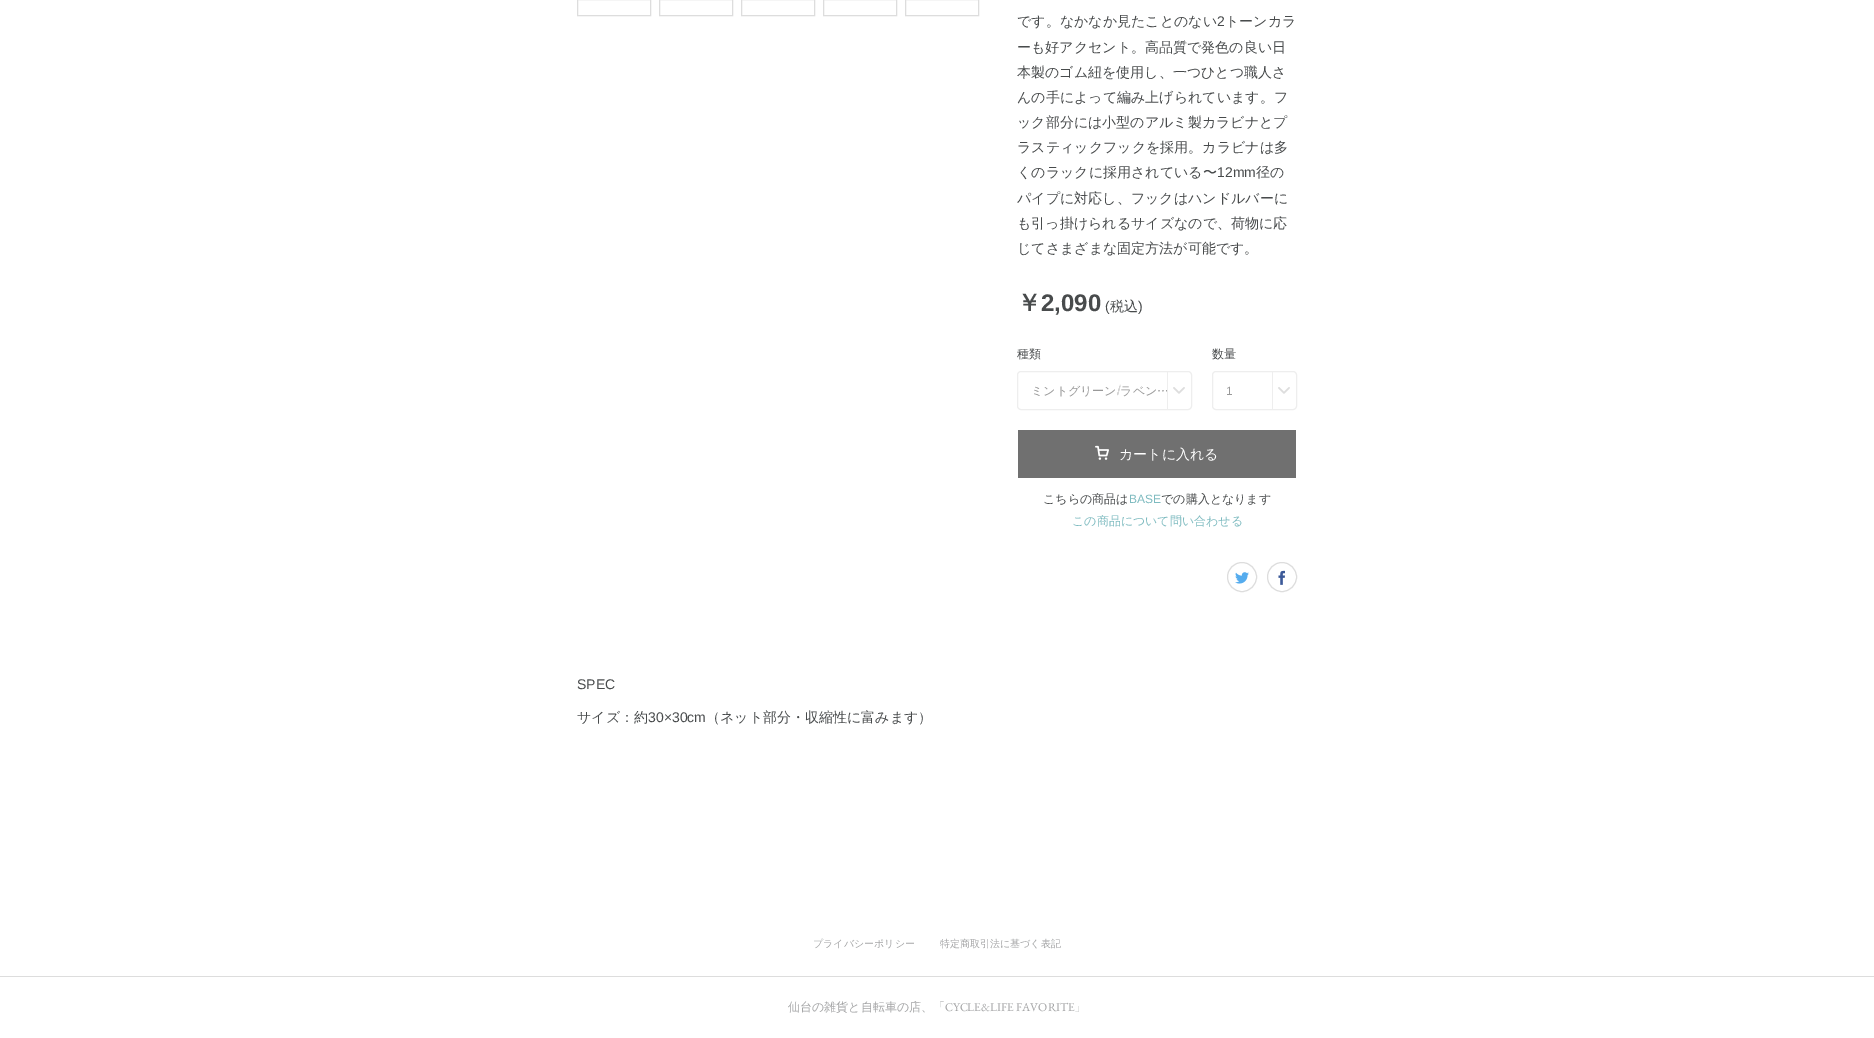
%!PS
<< /PageSize [1874 1038] >> setpagedevice
/s/stroke load def
/C { dup -16 bitshift 255 div exch dup -8 bitshift 255 and 255 div exch 255 and 255 div setrgbcolor } def
/F { [ exch dup neg 0 0 3 -1 roll 0 0 ] selectfont } def
/T { moveto show } def
/R { rectfill } def
/O { newpath 0 360 arc closepath } def
/Q { 5 dict begin { /r /h /w /y /x } { exch def } forall
  x r add y moveto x w add y 2 copy h add r arct x w add y h add x 1 index r arct
  x y h add x y r arct x y 2 copy exch w add exch r arct closepath end } def
/I { 5 dict begin { /h /w /y /x /name } { exch def } forall
  gsave x y translate w h scale
  w h 8 [w 0 0 h 0 0] name (r) file false 3 colorimage grestore end } def
0 1038 translate 1 -1 scale
4 setmiterlimit
16#FFFFFF C
0 0 1874 1038 R
16#DDDDDD C
577.5 -.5 73 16 rectstroke
659.5 -.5 73 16 rectstroke
741.5 -.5 73 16 rectstroke
823.5 -.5 73 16 rectstroke
905.5 -.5 73 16 rectstroke
/WenQuanYiZenHei-Medium 14 F
16#484B4C C
(です。なかなか見たことのない) 1017 26 T
/LiberationSans-Regular 14 F
(2) 1217 26 T
/WenQuanYiZenHei-Medium 14 F
(トーンカラ) 1225 26 T
(ーも好アクセント。高品質で発色の良い日) 1017 52 T
(本製のゴム紐を使用し、一つひとつ職人さ) 1017 77 T
(んの手によって編み上げられています。フ) 1017 102 T
(ック部分には小型のアルミ製カラビナとプ) 1017 127 T
(ラスティックフックを採用。カラビナは多) 1017 152 T
(くのラックに採用されている〜) 1017 177 T
/LiberationSans-Regular 14 F
(12mm) 1217 177 T
/WenQuanYiZenHei-Medium 14 F
(径の) 1256 177 T
(パイプに対応し、フックはハンドルバーに) 1017 203 T
(も引っ掛けられるサイズなので、荷物に応) 1017 228 T
(じてさまざまな固定方法が可能です。) 1017 253 T
/WenQuanYiZenHei-Bold 24 F
(￥) 1017 311 T
/LiberationSans-Bold 24 F
(2,090) 1041 311 T
/LiberationSans-Regular 14 F
(\() 1105 311 T
/WenQuanYiZenHei-Medium 14 F
(税込) 1110 311 T
/LiberationSans-Regular 14 F
(\)) 1138 311 T
/WenQuanYiZenHei-Medium 12 F
(種類) 1017 358 T
16#EEEEEE C
1017.5 371.5 174 38 3.5 Q s
16#999999 C
(ミントグリーン ラベン…) 1031 395 T
/LiberationSans-Regular 12 F
(/) 1117 395 T
/LiberationSans-Regular 14 F
16#DEDEDE C
(/) 1117 395 T
16#EEEEEE C
1167 372 1 37 R
(1.rgb) 1173 387 12 7 I
/WenQuanYiZenHei-Medium 12 F
16#484B4C C
(数量) 1212 358 T
16#EEEEEE C
1212.5 371.5 84 38 3.5 Q s
/LiberationSans-Regular 12 F
16#999999 C
(1) 1226 395 T
16#EEEEEE C
1272 372 1 37 R
(1.rgb) 1278 387 12 7 I
16#707070 C
1018 430 278 48 R
(2.rgb) 1095 445 14 15 I
/WenQuanYiZenHei-Medium 14 F
16#FFFFFF C
(カートに入れる) 1119 459 T
/WenQuanYiZenHei-Medium 12 F
16#484B4C C
(こちらの商品は) 1043 503 T
/LiberationSans-Regular 12 F
16#7EBBC0 C
(BASE) 1129 503 T
/WenQuanYiZenHei-Medium 12 F
16#484B4C C
(での購入となります) 1161 503 T
16#7EBBC0 C
(この商品について問い合わせる) 1072 525 T
16#DDDDDD C
1242 577 14.5 O s
(3.rgb) 1235 572 14 12 I
1282 577 14.5 O s
(4.rgb) 1278 570 7 15 I
/LiberationSans-Regular 14 F
16#484B4C C
(SPEC) 577 689 T
/WenQuanYiZenHei-Medium 14 F
(サイズ：約) 577 722 T
/LiberationSans-Regular 14 F
(30×30cm) 648 722 T
/WenQuanYiZenHei-Medium 14 F
(（ネット部分・収縮性に富みます）) 706 722 T
/WenQuanYiZenHei-Medium 10 F
16#A4A5A6 C
(プライバシーポリシー) 813 947 T
(特定商取引法に基づく表記) 940 947 T
16#DDDDDD C
0 976 1874 1 R
/WenQuanYiZenHei-Medium 12 F
16#A4A5A6 C
(仙台の雑貨と自転車の店、「) 788 1011 T
/EBGaramond-Regular 12 F
(CYCLE&LIFE FAVORITE) 945 1011 T
/WenQuanYiZenHei-Medium 12 F
(」) 1074 1011 T
showpage
